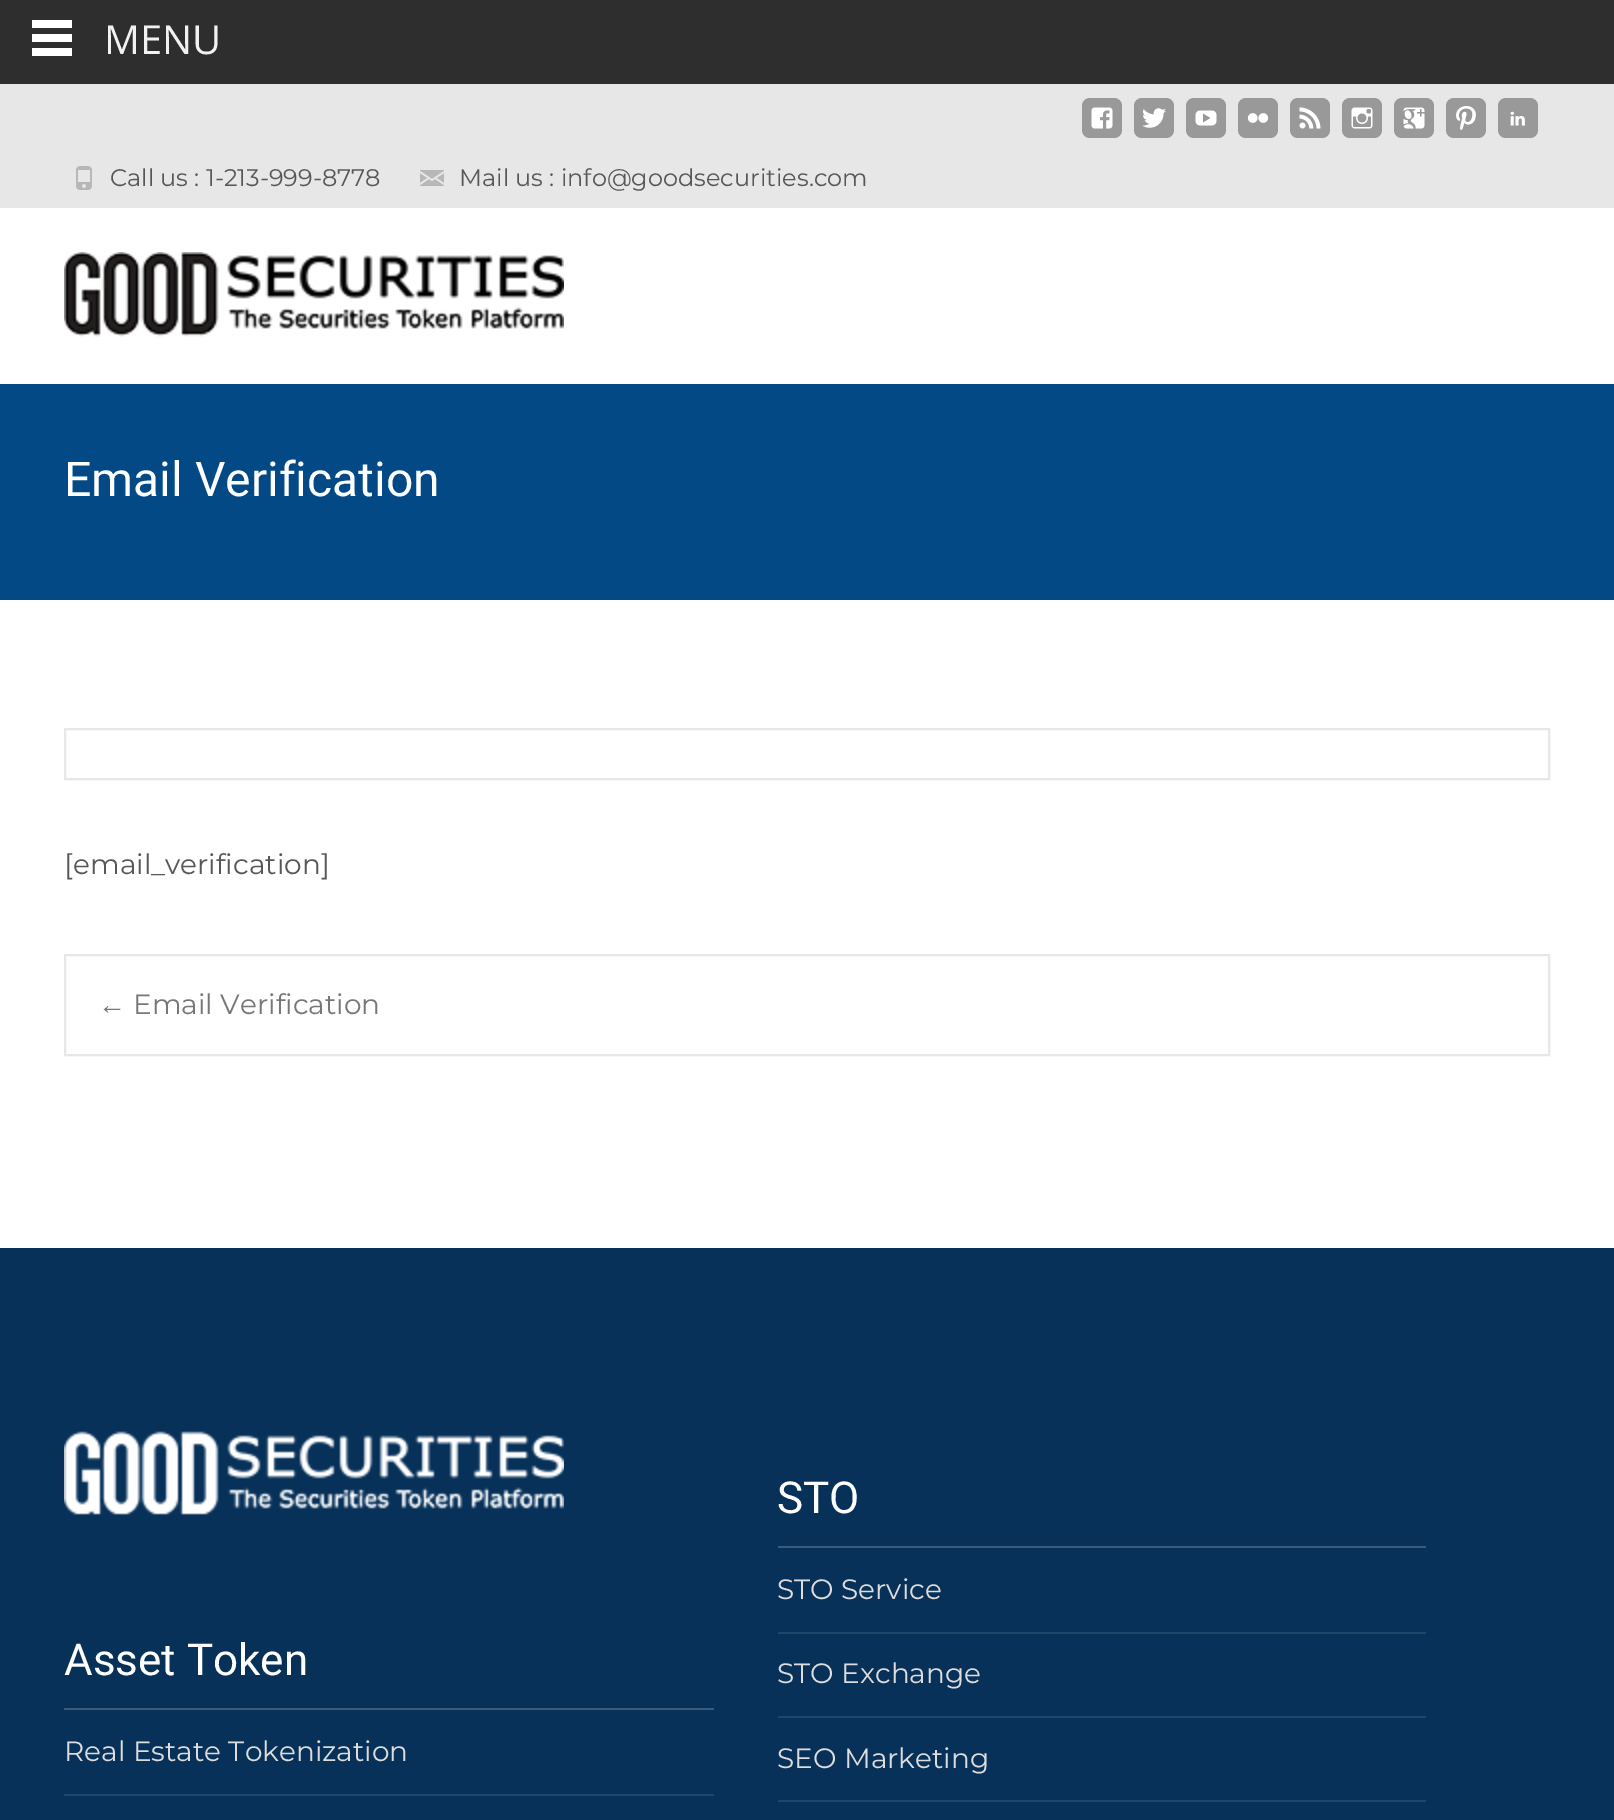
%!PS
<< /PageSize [1614 1820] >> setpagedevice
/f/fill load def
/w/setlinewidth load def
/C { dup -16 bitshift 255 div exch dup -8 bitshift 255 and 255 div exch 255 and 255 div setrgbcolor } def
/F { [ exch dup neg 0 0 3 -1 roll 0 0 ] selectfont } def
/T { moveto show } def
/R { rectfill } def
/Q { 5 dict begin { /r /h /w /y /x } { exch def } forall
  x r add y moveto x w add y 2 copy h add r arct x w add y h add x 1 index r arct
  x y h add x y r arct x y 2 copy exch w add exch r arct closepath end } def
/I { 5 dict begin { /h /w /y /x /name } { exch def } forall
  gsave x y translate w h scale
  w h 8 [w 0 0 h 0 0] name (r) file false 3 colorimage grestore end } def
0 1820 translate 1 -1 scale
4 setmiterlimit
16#FFFFFF C
0 0 1614 1820 R
16#2E2E2E C
0 0 1614 84 R
16#FFFFFF C
32 20 40 8 R
32 34 40 8 R
32 48 40 8 R
/OpenSans-Regular 40 F
16#F2F2F2 C
(MENU) 104 54 T
16#E7E7E7 C
0 84 1614 124 R
16#999999 C
1082 98 40 40 8 Q f
(1.rgb) 1091 107 22 22 I
1134 98 40 40 8 Q f
(2.rgb) 1142 108 24 20 I
1186 98 40 40 8 Q f
(3.rgb) 1195 110 22 16 I
1238 98 40 40 8 Q f
(4.rgb) 1247 113 22 10 I
1290 98 40 40 8 Q f
(5.rgb) 1299 107 22 22 I
1342 98 40 40 8 Q f
(6.rgb) 1351 107 22 22 I
1394 98 40 40 8 Q f
(7.rgb) 1403 107 22 22 I
1446 98 40 40 8 Q f
(8.rgb) 1456 106 20 24 I
1498 98 40 40 8 Q f
(9.rgb) 1510 111 15 15 I
(10.rgb) 76 166 16 24 I
/Montserrat-Regular 24 F
16#575757 C
(Call us : 1-213-999-8778) 110 186 T
(11.rgb) 420 170 24 16 I
(Mail us : info@goodsecurities.com) 459 186 T
(12.rgb) 64 252 500 85 I
16#024986 C
0 384 1614 216 R
/Roboto-Regular 48 F
16#FFFFFF C
(Email Verification) 64 496 T
16#E7E7E7 C
2 w
65 729 1484 50 rectstroke
/Montserrat-Regular 28 F
16#575757 C
([email_verification]) 64 874 T
16#E7E7E7 C
65 955 1484 100 rectstroke
/LiberationSerif-Regular 28 F
16#777777 C
(←) 98 1014 T
/Montserrat-Regular 28 F
(Email Verification) 133 1014 T
16#073159 C
0 1248 1614 572 R
(13.rgb) 64 1431 500 84 I
16#395A7A C
778 1546 648 2 R
/Roboto-Regular 44 F
16#FFFFFF C
(STO) 777 1513 T
16#20466A C
778 1632 648 2 R
/Montserrat-Regular 28 F
16#DDDDDD C
(STO Service) 777 1599 T
16#20466A C
778 1716 648 2 R
16#DDDDDD C
(STO Exchange) 777 1683 T
16#20466A C
778 1800 648 2 R
16#DDDDDD C
(SEO Marketing) 777 1768 T
16#395A7A C
64 1708 650 2 R
/Roboto-Regular 44 F
16#FFFFFF C
(Asset Token) 64 1675 T
16#20466A C
64 1794 650 2 R
/Montserrat-Regular 28 F
16#DDDDDD C
(Real Estate Tokenization) 64 1761 T
showpage
